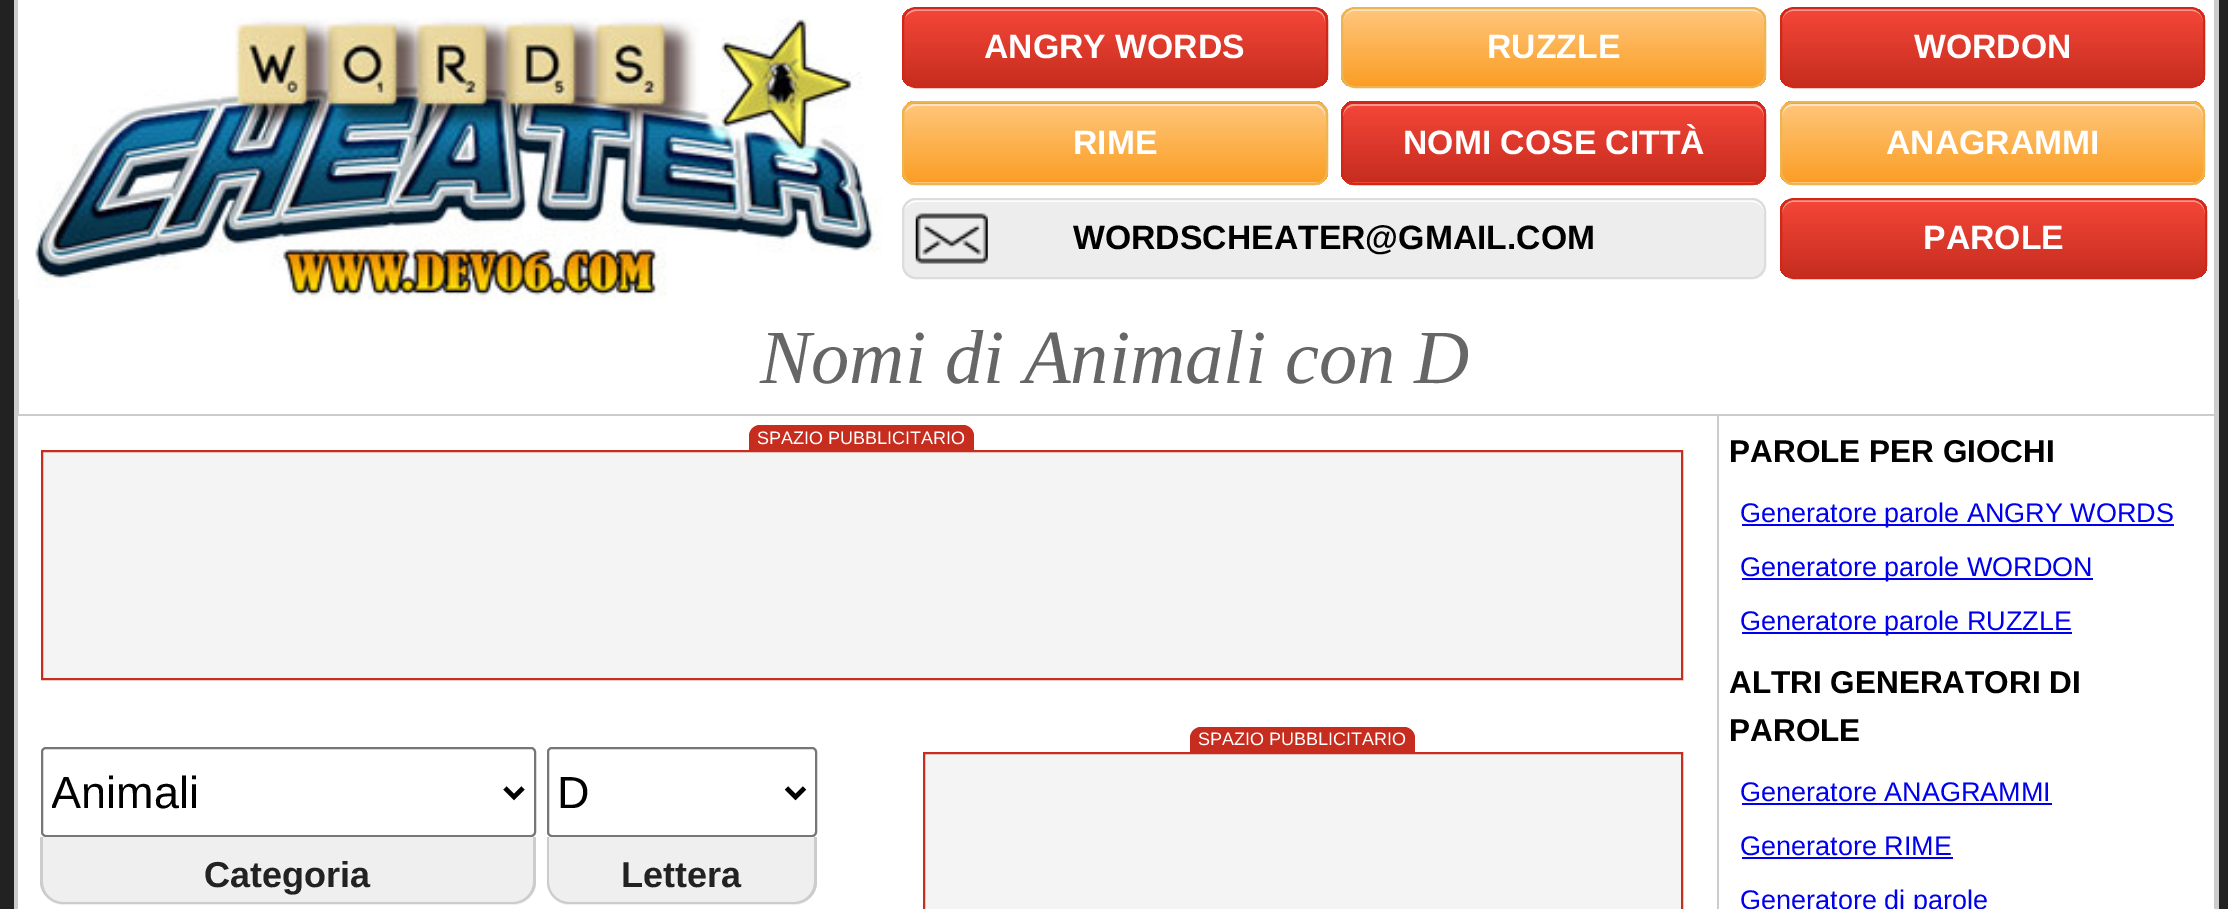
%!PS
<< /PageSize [2228 909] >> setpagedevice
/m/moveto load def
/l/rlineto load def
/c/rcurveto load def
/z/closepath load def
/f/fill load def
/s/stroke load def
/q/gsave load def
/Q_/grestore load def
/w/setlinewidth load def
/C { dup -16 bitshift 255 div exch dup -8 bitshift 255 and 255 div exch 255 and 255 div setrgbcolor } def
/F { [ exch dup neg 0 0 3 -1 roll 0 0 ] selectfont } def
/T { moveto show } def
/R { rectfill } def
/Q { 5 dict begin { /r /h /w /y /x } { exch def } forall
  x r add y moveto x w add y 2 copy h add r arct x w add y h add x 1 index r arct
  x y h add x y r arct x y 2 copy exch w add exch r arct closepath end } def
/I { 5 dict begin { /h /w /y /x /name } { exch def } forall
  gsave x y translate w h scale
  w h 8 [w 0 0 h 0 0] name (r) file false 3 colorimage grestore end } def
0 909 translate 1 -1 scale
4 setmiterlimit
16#222222 C
0 0 2228 909 R
16#FFFFFF C
19 0 2195 909 R
16#CCCCCC C
2214 0 5 909 R
14 0 5 909 R
18 414 2196 2 R
(1.rgb) 18 0 864 300 I
q
902 7 426 81 14 Q clip newpath
q 902 9 m 426 0 l 0 77 l -426 0 l z clip newpath
<< /ShadingType 2 /ColorSpace /DeviceRGB /Coords [1115 9 1115 86] /Extend [true true] /Function << /FunctionType 3 /Domain [0 1] /Functions [<< /FunctionType 2 /Domain [0 1] /C0 [.949 .271 .216] /C1 [.949 .271 .216] /N 1 >> << /FunctionType 2 /Domain [0 1] /C0 [.949 .271 .216] /C1 [.776 .176 .122] /N 1 >>] /Bounds [.05] /Encode [0 1 0 1] >> >> shfill Q_
Q_
16#F5978E C
916 11 m 398 0 l 6 0 11 5 11 11 c 0 -2 l 0 -6 -5 -11 -11 -11 c -398 0 l -5 0 -9 3 -11 8 c 3 -3 7 -6 11 -6 c z f
16#D02718 C
2 w
903 8 424 79 13 Q s
/LiberationSans-Bold 33.75 F
16#FFFFFF C
(ANGRY WORDS) 984 58 T
q
1341 7 425 81 14 Q clip newpath
q 1341 9 m 425 0 l 0 77 l -425 0 l z clip newpath
<< /ShadingType 2 /ColorSpace /DeviceRGB /Coords [1554 9 1554 86] /Extend [true true] /Function << /FunctionType 3 /Domain [0 1] /Functions [<< /FunctionType 2 /Domain [0 1] /C0 [1 .769 .467] /C1 [1 .769 .467] /N 1 >> << /FunctionType 2 /Domain [0 1] /C0 [1 .769 .467] /C1 [.984 .62 .145] /N 1 >>] /Bounds [.05] /Encode [0 1 0 1] >> >> shfill Q_
Q_
16#FCE2C1 C
1354 11 m 399 0 l 6 0 11 5 11 11 c 0 -2 l 0 -6 -5 -11 -11 -11 c -399 0 l -6 0 -11 5 -11 11 c 0 2 l 0 -6 5 -11 11 -11 c z f
16#EEB44F C
1342 8 423 79 13 Q s
16#FFFFFF C
(RUZZLE) 1487 58 T
q
1780 7 425 81 14 Q clip newpath
q 1780 9 m 425 0 l 0 77 l -425 0 l z clip newpath
<< /ShadingType 2 /ColorSpace /DeviceRGB /Coords [1992 9 1992 86] /Extend [true true] /Function << /FunctionType 3 /Domain [0 1] /Functions [<< /FunctionType 2 /Domain [0 1] /C0 [.949 .271 .216] /C1 [.949 .271 .216] /N 1 >> << /FunctionType 2 /Domain [0 1] /C0 [.949 .271 .216] /C1 [.776 .176 .122] /N 1 >>] /Bounds [.05] /Encode [0 1 0 1] >> >> shfill Q_
Q_
16#F5978E C
1793 11 m 399 0 l 6 0 11 5 11 11 c 0 -2 l 0 -6 -5 -11 -11 -11 c -399 0 l -6 0 -11 5 -11 11 c 0 2 l 0 -6 5 -11 11 -11 c z f
16#D02718 C
1781 8 423 79 13 Q s
16#FFFFFF C
(WORDON) 1914 58 T
q
902 101 426 84 14 Q clip newpath
q 902 101 m 426 0 l 0 3 l -426 0 l z clip newpath
<< /ShadingType 2 /ColorSpace /DeviceRGB /Coords [1115 25 1115 104] /Extend [true true] /Function << /FunctionType 3 /Domain [0 1] /Functions [<< /FunctionType 2 /Domain [0 1] /C0 [1 .769 .467] /C1 [1 .769 .467] /N 1 >> << /FunctionType 2 /Domain [0 1] /C0 [1 .769 .467] /C1 [.984 .62 .145] /N 1 >>] /Bounds [.05] /Encode [0 1 0 1] >> >> shfill Q_
q 902 104 m 426 0 l 0 78 l -426 0 l z clip newpath
<< /ShadingType 2 /ColorSpace /DeviceRGB /Coords [1115 103 1115 182] /Extend [true true] /Function << /FunctionType 3 /Domain [0 1] /Functions [<< /FunctionType 2 /Domain [0 1] /C0 [1 .769 .467] /C1 [1 .769 .467] /N 1 >> << /FunctionType 2 /Domain [0 1] /C0 [1 .769 .467] /C1 [.984 .62 .145] /N 1 >>] /Bounds [.05] /Encode [0 1 0 1] >> >> shfill Q_
q 902 182 m 426 0 l 0 3 l -426 0 l z clip newpath
<< /ShadingType 2 /ColorSpace /DeviceRGB /Coords [1115 182 1115 261] /Extend [true true] /Function << /FunctionType 3 /Domain [0 1] /Functions [<< /FunctionType 2 /Domain [0 1] /C0 [1 .769 .467] /C1 [1 .769 .467] /N 1 >> << /FunctionType 2 /Domain [0 1] /C0 [1 .769 .467] /C1 [.984 .62 .145] /N 1 >>] /Bounds [.05] /Encode [0 1 0 1] >> >> shfill Q_
Q_
16#FCE2C1 C
916 106 m 398 0 l 6 0 11 5 11 11 c 0 -2 l 0 -6 -5 -11 -11 -11 c -398 0 l -5 0 -9 3 -11 8 c 3 -3 7 -6 11 -6 c z f
16#EEB44F C
903 102 424 82 13 Q s
16#FFFFFF C
(RIME) 1073 154 T
q
1341 101 425 84 14 Q clip newpath
q 1341 101 m 425 0 l 0 3 l -425 0 l z clip newpath
<< /ShadingType 2 /ColorSpace /DeviceRGB /Coords [1554 25 1554 104] /Extend [true true] /Function << /FunctionType 3 /Domain [0 1] /Functions [<< /FunctionType 2 /Domain [0 1] /C0 [.949 .271 .216] /C1 [.949 .271 .216] /N 1 >> << /FunctionType 2 /Domain [0 1] /C0 [.949 .271 .216] /C1 [.776 .176 .122] /N 1 >>] /Bounds [.05] /Encode [0 1 0 1] >> >> shfill Q_
q 1341 104 m 425 0 l 0 78 l -425 0 l z clip newpath
<< /ShadingType 2 /ColorSpace /DeviceRGB /Coords [1554 103 1554 182] /Extend [true true] /Function << /FunctionType 3 /Domain [0 1] /Functions [<< /FunctionType 2 /Domain [0 1] /C0 [.949 .271 .216] /C1 [.949 .271 .216] /N 1 >> << /FunctionType 2 /Domain [0 1] /C0 [.949 .271 .216] /C1 [.776 .176 .122] /N 1 >>] /Bounds [.05] /Encode [0 1 0 1] >> >> shfill Q_
q 1341 182 m 425 0 l 0 3 l -425 0 l z clip newpath
<< /ShadingType 2 /ColorSpace /DeviceRGB /Coords [1554 182 1554 261] /Extend [true true] /Function << /FunctionType 3 /Domain [0 1] /Functions [<< /FunctionType 2 /Domain [0 1] /C0 [.949 .271 .216] /C1 [.949 .271 .216] /N 1 >> << /FunctionType 2 /Domain [0 1] /C0 [.949 .271 .216] /C1 [.776 .176 .122] /N 1 >>] /Bounds [.05] /Encode [0 1 0 1] >> >> shfill Q_
Q_
16#F5978E C
1354 106 m 399 0 l 6 0 11 5 11 11 c 0 -2 l 0 -6 -5 -11 -11 -11 c -399 0 l -6 0 -11 5 -11 11 c 0 2 l 0 -6 5 -11 11 -11 c z f
16#D02718 C
1342 102 423 82 13 Q s
16#FFFFFF C
(NOMI COSE CITTÀ) 1403 154 T
q
1780 101 425 84 14 Q clip newpath
q 1780 101 m 425 0 l 0 3 l -425 0 l z clip newpath
<< /ShadingType 2 /ColorSpace /DeviceRGB /Coords [1992 25 1992 104] /Extend [true true] /Function << /FunctionType 3 /Domain [0 1] /Functions [<< /FunctionType 2 /Domain [0 1] /C0 [1 .769 .467] /C1 [1 .769 .467] /N 1 >> << /FunctionType 2 /Domain [0 1] /C0 [1 .769 .467] /C1 [.984 .62 .145] /N 1 >>] /Bounds [.05] /Encode [0 1 0 1] >> >> shfill Q_
q 1780 104 m 425 0 l 0 78 l -425 0 l z clip newpath
<< /ShadingType 2 /ColorSpace /DeviceRGB /Coords [1992 103 1992 182] /Extend [true true] /Function << /FunctionType 3 /Domain [0 1] /Functions [<< /FunctionType 2 /Domain [0 1] /C0 [1 .769 .467] /C1 [1 .769 .467] /N 1 >> << /FunctionType 2 /Domain [0 1] /C0 [1 .769 .467] /C1 [.984 .62 .145] /N 1 >>] /Bounds [.05] /Encode [0 1 0 1] >> >> shfill Q_
q 1780 182 m 425 0 l 0 3 l -425 0 l z clip newpath
<< /ShadingType 2 /ColorSpace /DeviceRGB /Coords [1992 182 1992 261] /Extend [true true] /Function << /FunctionType 3 /Domain [0 1] /Functions [<< /FunctionType 2 /Domain [0 1] /C0 [1 .769 .467] /C1 [1 .769 .467] /N 1 >> << /FunctionType 2 /Domain [0 1] /C0 [1 .769 .467] /C1 [.984 .62 .145] /N 1 >>] /Bounds [.05] /Encode [0 1 0 1] >> >> shfill Q_
Q_
16#FCE2C1 C
1793 106 m 399 0 l 6 0 11 5 11 11 c 0 -2 l 0 -6 -5 -11 -11 -11 c -399 0 l -6 0 -11 5 -11 11 c 0 2 l 0 -6 5 -11 11 -11 c z f
16#EEB44F C
1781 102 423 82 13 Q s
16#FFFFFF C
(ANAGRAMMI) 1886 154 T
16#EDEDED C
902 198 864 81 14 Q f
(2.rgb) 915 213 73 51 I
16#FFFFFF C
916 202 m 837 0 l 6 0 11 6 11 12 c 0 -3 l 0 -6 -5 -11 -11 -11 c -837 0 l -6 0 -10 4 -11 9 c 2 -4 7 -7 11 -7 c z f
16#DCDCDC C
903 199 862 79 13 Q s
16#000000 C
(WORDSCHEATER@GMAIL.COM) 1073 249 T
q
1780 198 427 81 14 Q clip newpath
q 1780 200 m 427 0 l 0 77 l -427 0 l z clip newpath
<< /ShadingType 2 /ColorSpace /DeviceRGB /Coords [1994 200 1994 277] /Extend [true true] /Function << /FunctionType 3 /Domain [0 1] /Functions [<< /FunctionType 2 /Domain [0 1] /C0 [.949 .271 .216] /C1 [.949 .271 .216] /N 1 >> << /FunctionType 2 /Domain [0 1] /C0 [.949 .271 .216] /C1 [.776 .176 .122] /N 1 >>] /Bounds [.05] /Encode [0 1 0 1] >> >> shfill Q_
Q_
16#F5978E C
1793 202 m 401 0 l 6 0 11 6 11 12 c 0 -6 -2 -12 -9 -14 c -403 0 l -8 0 -11 7 -11 14 c 0 -6 5 -12 11 -12 c z f
16#D02718 C
1781 199 425 79 13 Q s
16#FFFFFF C
(PAROLE) 1923 249 T
/LiberationSerif-Italic 76.5 F
16#666666 C
(Nomi di Animali con D) 760 383 T
16#FFFFFF C
18 416 1 493 R
16#F4F4F4 C
42 451 m 1640 0 l 0 228 l -1640 0 l z q f Q_
16#C62D1F C
s
760 425 m 203 0 l 6 0 11 5 11 11 c 0 16 l -225 0 l 0 -16 l 0 -6 5 -11 11 -11 c z f
/LiberationSans-Regular 18 F
16#FFFFFF C
(SPAZIO PUBBLICITARIO) 757 444 T
16#F4F4F4 C
924 753 m 758 0 l 0 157 l -758 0 l z q f Q_
16#C62D1F C
s
1201 727 m 203 0 l 6 0 11 5 11 11 c 0 16 l -225 0 l 0 -16 l 0 -6 5 -11 11 -11 c z f
16#FFFFFF C
(SPAZIO PUBBLICITARIO) 1198 745 T
16#767676 C
42 748 493 88 4 Q s
16#000000 C
4.5 w
505 788 m 9 9 l 9 -9 l s
q
52 765 445 54 rectclip
/LiberationSans-Regular 45 F
(Animali) 51 808 T
Q_
16#EFEFEF C
41 837 m 495 0 l 0 45 l 0 12.5 -10.5 23 -23 23 c -449 0 l -12.5 0 -23 -10.5 -23 -23 c z f
16#CCCCCC C
40 837 m 496 0 l 0 45 l 0 12 -11 22 -23 22 c -450 0 l -12 0 -23 -10 -23 -22 c z 43 837 m 490 0 l 0 45 l 0 11 -9 20 -20 20 c -450 0 l -11 0 -20 -9 -20 -20 c z eofill
/LiberationSans-Bold 36 F
16#222222 C
(Categoria) 204 887 T
16#767676 C
2 w
548 748 268 88 4 Q s
16#000000 C
4.5 w
786.5 788 m 9 9 l 9 -9 l s
/LiberationSans-Regular 45 F
(D) 557 808 T
16#EFEFEF C
547 837 m 270 0 l 0 45 l 0 12.5 -10.5 23 -23 23 c -224 0 l -12.5 0 -23 -10.5 -23 -23 c z f
16#CCCCCC C
547 837 m 270 0 l 0 45 l 0 12 -10 22 -23 22 c -225 0 l -12 0 -22 -10 -22 -22 c z 549 837 m 265 0 l 0 45 l 0 11 -9 20 -20 20 c -225 0 l -11 0 -20 -9 -20 -20 c z eofill
/LiberationSans-Bold 36 F
16#222222 C
(Lettera) 621 887 T
16#CCCCCC C
1717 416 2 493 R
/LiberationSans-Bold 31.5 F
16#000000 C
(PAROLE PER GIOCHI) 1729 462 T
16#0000EE C
1742 524 432 2 R
/LiberationSans-Regular 27 F
(Generatore parole ANGRY WORDS) 1740 522 T
1742 578 351 2 R
(Generatore parole WORDON) 1740 576 T
1742 632 330 2 R
(Generatore parole RUZZLE) 1740 630 T
/LiberationSans-Bold 31.5 F
16#000000 C
(ALTRI GENERATORI DI) 1729 693 T
(PAROLE) 1729 741 T
/LiberationSans-Regular 27 F
16#0000EE C
(Generatore ANAGRAMMI) 1740 801 T
1742 803 310 2 R
(Generatore RIME) 1740 855 T
1742 857 211 2 R
(Generatore di parole) 1740 909 T
showpage
